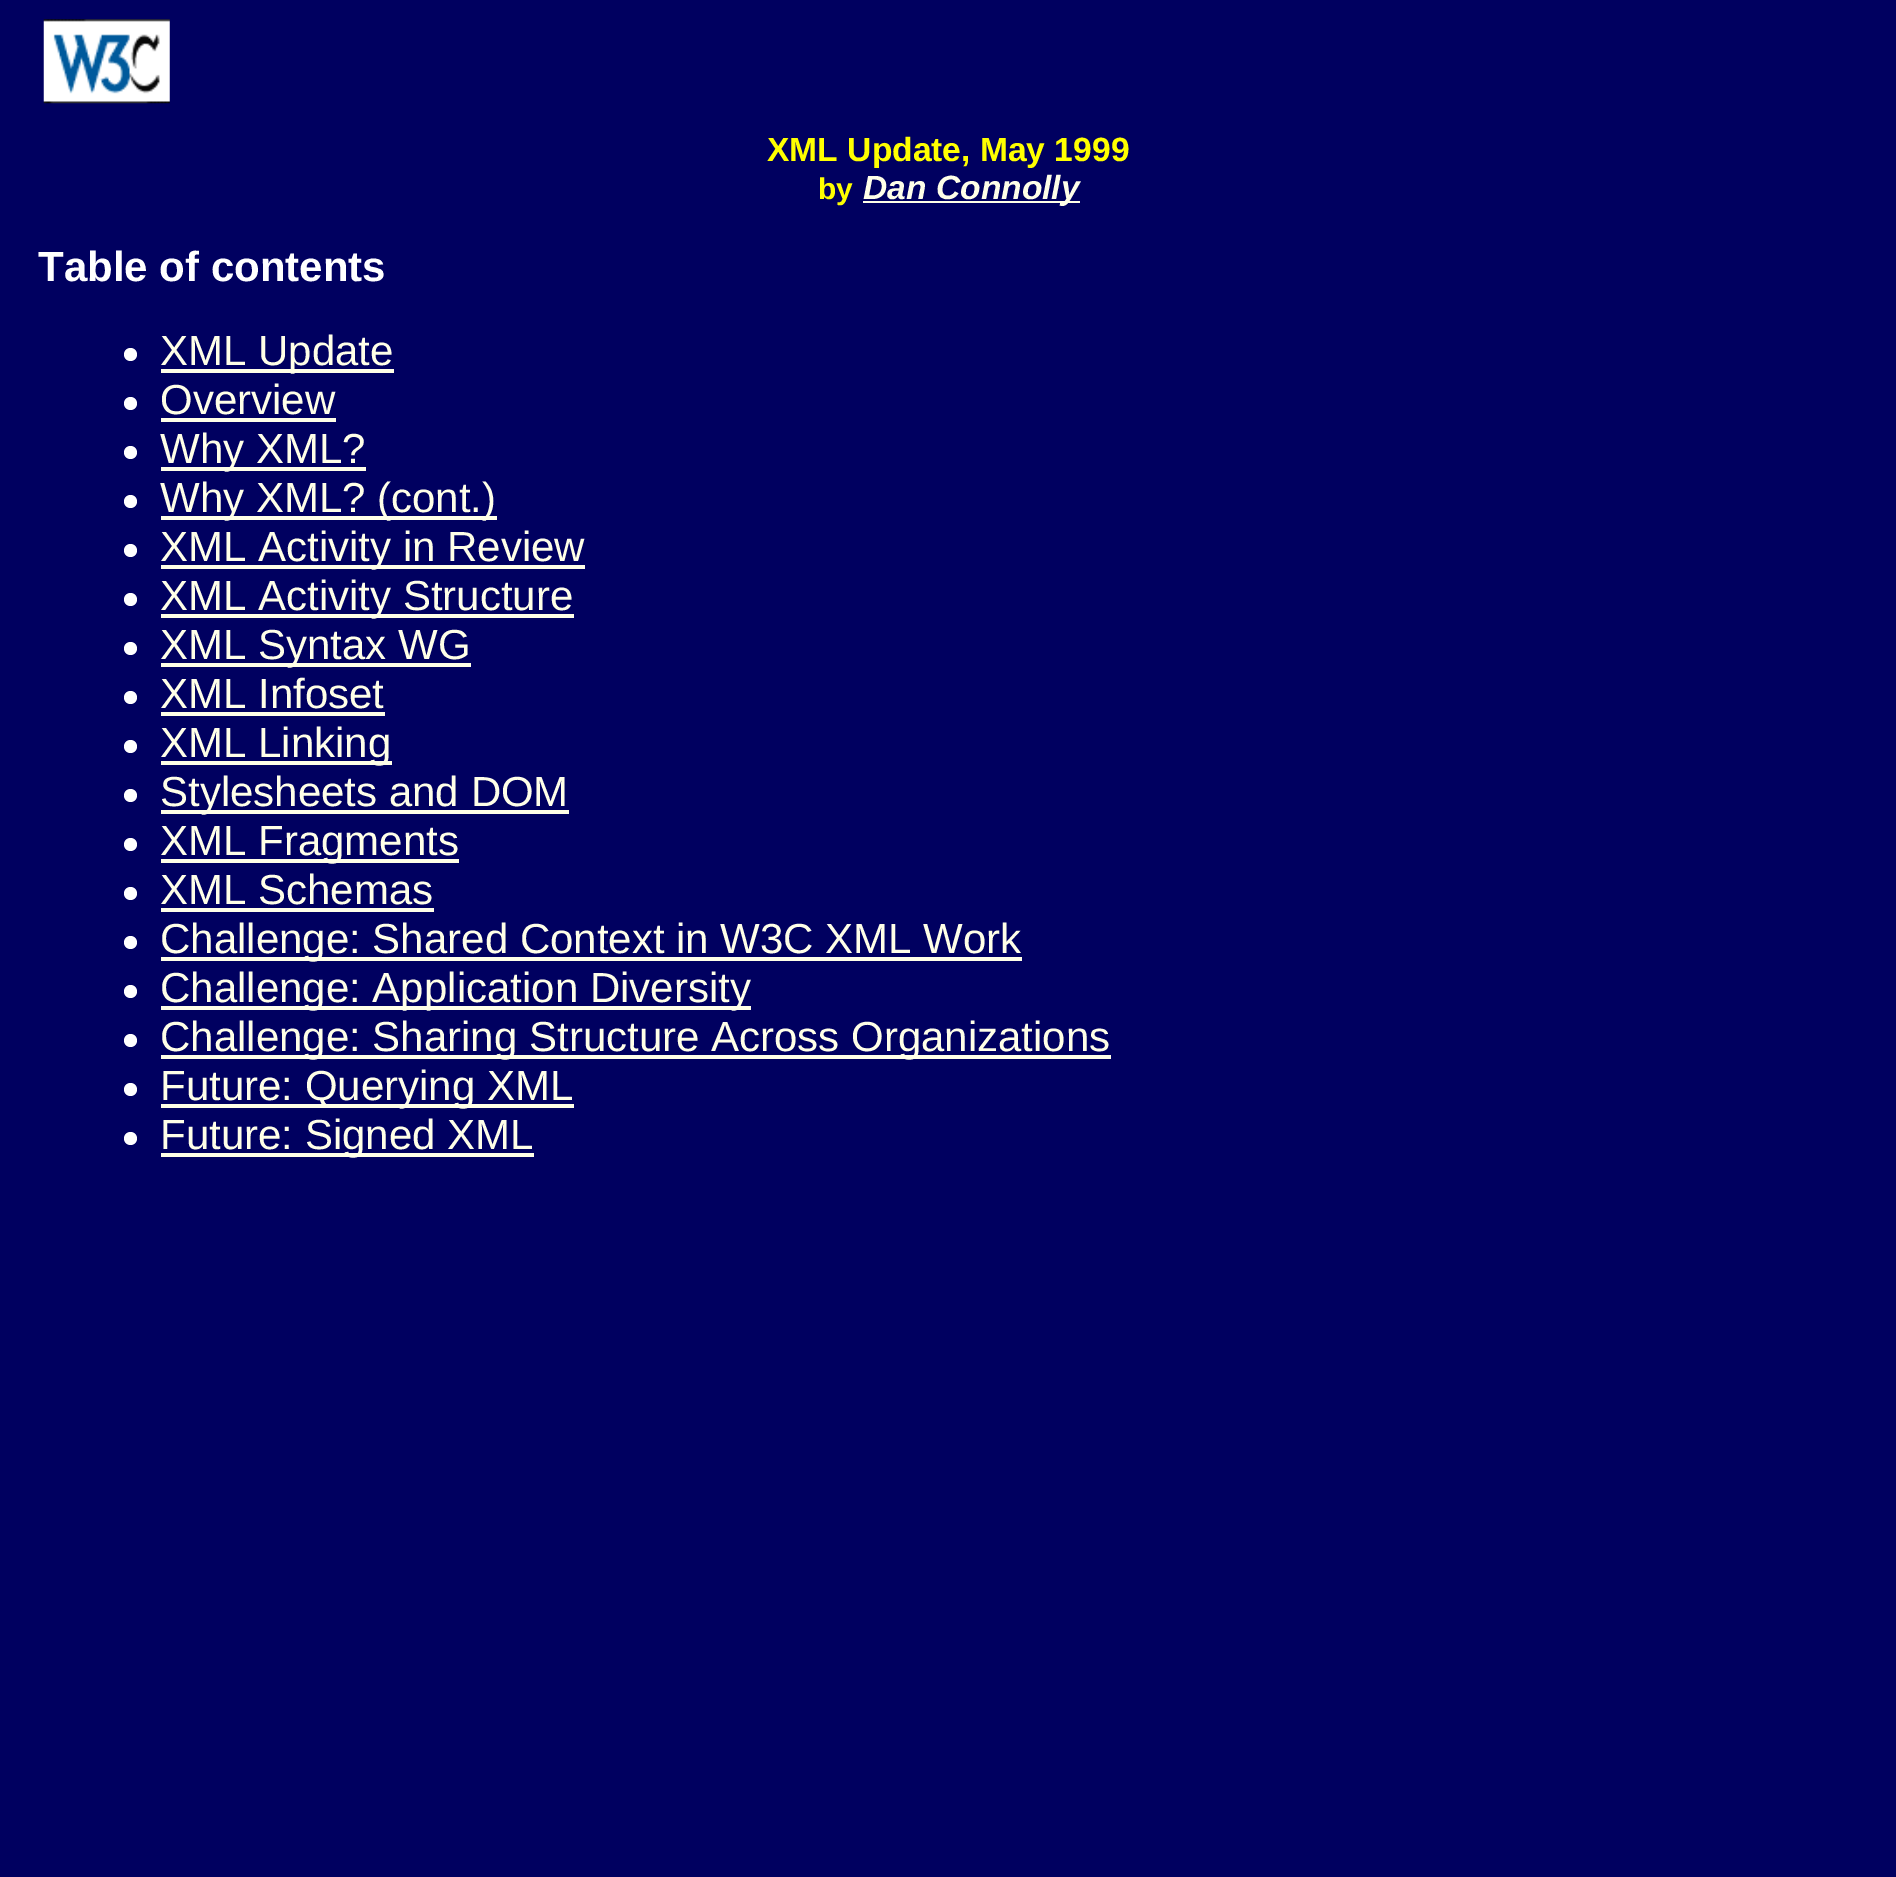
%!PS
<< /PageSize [1896 1877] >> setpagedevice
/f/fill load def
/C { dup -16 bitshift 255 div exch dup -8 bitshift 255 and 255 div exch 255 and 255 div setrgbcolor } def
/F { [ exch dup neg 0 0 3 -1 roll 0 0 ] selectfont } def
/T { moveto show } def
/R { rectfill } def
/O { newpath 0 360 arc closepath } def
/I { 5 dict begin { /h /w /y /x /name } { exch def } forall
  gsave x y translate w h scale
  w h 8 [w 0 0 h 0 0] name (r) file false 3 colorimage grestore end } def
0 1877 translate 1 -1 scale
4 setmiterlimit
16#000060 C
0 0 1896 1877 R
(1.rgb) 43 19 127 85 I
/LiberationSans-Bold 33.6 F
16#FFFF00 C
(XML Update, May 1999) 767 161 T
/LiberationSans-Bold 30 F
(by) 818 199 T
16#FFFFE8 C
863 201 217 2 R
/LiberationSans-BoldItalic 33.6 F
(Dan Connolly) 863 199 T
/LiberationSans-Bold 42 F
16#FFFFFF C
(Table of contents) 38 281 T
130.5 354.5 6.5 O f
16#FFFFE8 C
161 369 233 4 R
/LiberationSans-Regular 42 F
(XML Update) 160 365 T
16#FFFFFF C
130.5 403.5 6.5 O f
16#FFFFE8 C
(Overview) 160 414 T
161 418 175 4 R
16#FFFFFF C
130.5 452.5 6.5 O f
16#FFFFE8 C
161 467 205 4 R
(Why XML?) 160 463 T
16#FFFFFF C
130.5 501.5 6.5 O f
16#FFFFE8 C
161 516 336 4 R
(Why XML? \(cont.\)) 160 512 T
16#FFFFFF C
130.5 550.5 6.5 O f
16#FFFFE8 C
161 565 424 4 R
(XML Activity in Review) 160 561 T
16#FFFFFF C
130.5 599.5 6.5 O f
16#FFFFE8 C
161 614 413 4 R
(XML Activity Structure) 160 610 T
16#FFFFFF C
130.5 648.5 6.5 O f
16#FFFFE8 C
161 663 310 4 R
(XML Syntax WG) 160 659 T
16#FFFFFF C
130.5 697.5 6.5 O f
16#FFFFE8 C
(XML Infoset) 160 708 T
161 712 224 4 R
16#FFFFFF C
130.5 746.5 6.5 O f
16#FFFFE8 C
161 761 231 4 R
(XML Linking) 160 757 T
16#FFFFFF C
130.5 795.5 6.5 O f
16#FFFFE8 C
161 810 408 4 R
(Stylesheets and DOM) 160 806 T
16#FFFFFF C
130.5 844.5 6.5 O f
16#FFFFE8 C
161 859 298 4 R
(XML Fragments) 160 855 T
16#FFFFFF C
130.5 893.5 6.5 O f
16#FFFFE8 C
(XML Schemas) 160 904 T
161 908 273 4 R
16#FFFFFF C
130.5 942.5 6.5 O f
16#FFFFE8 C
161 957 861 4 R
(Challenge: Shared Context in W3C XML Work) 160 953 T
16#FFFFFF C
130.5 991.5 6.5 O f
16#FFFFE8 C
161 1006 590 4 R
(Challenge: Application Diversity) 160 1002 T
16#FFFFFF C
130.5 1040.5 6.5 O f
16#FFFFE8 C
161 1055 950 4 R
(Challenge: Sharing Structure Across Organizations) 160 1051 T
16#FFFFFF C
130.5 1089.5 6.5 O f
16#FFFFE8 C
161 1104 413 4 R
(Future: Querying XML) 160 1100 T
16#FFFFFF C
130.5 1138.5 6.5 O f
16#FFFFE8 C
161 1153 373 4 R
(Future: Signed XML) 160 1149 T
showpage
